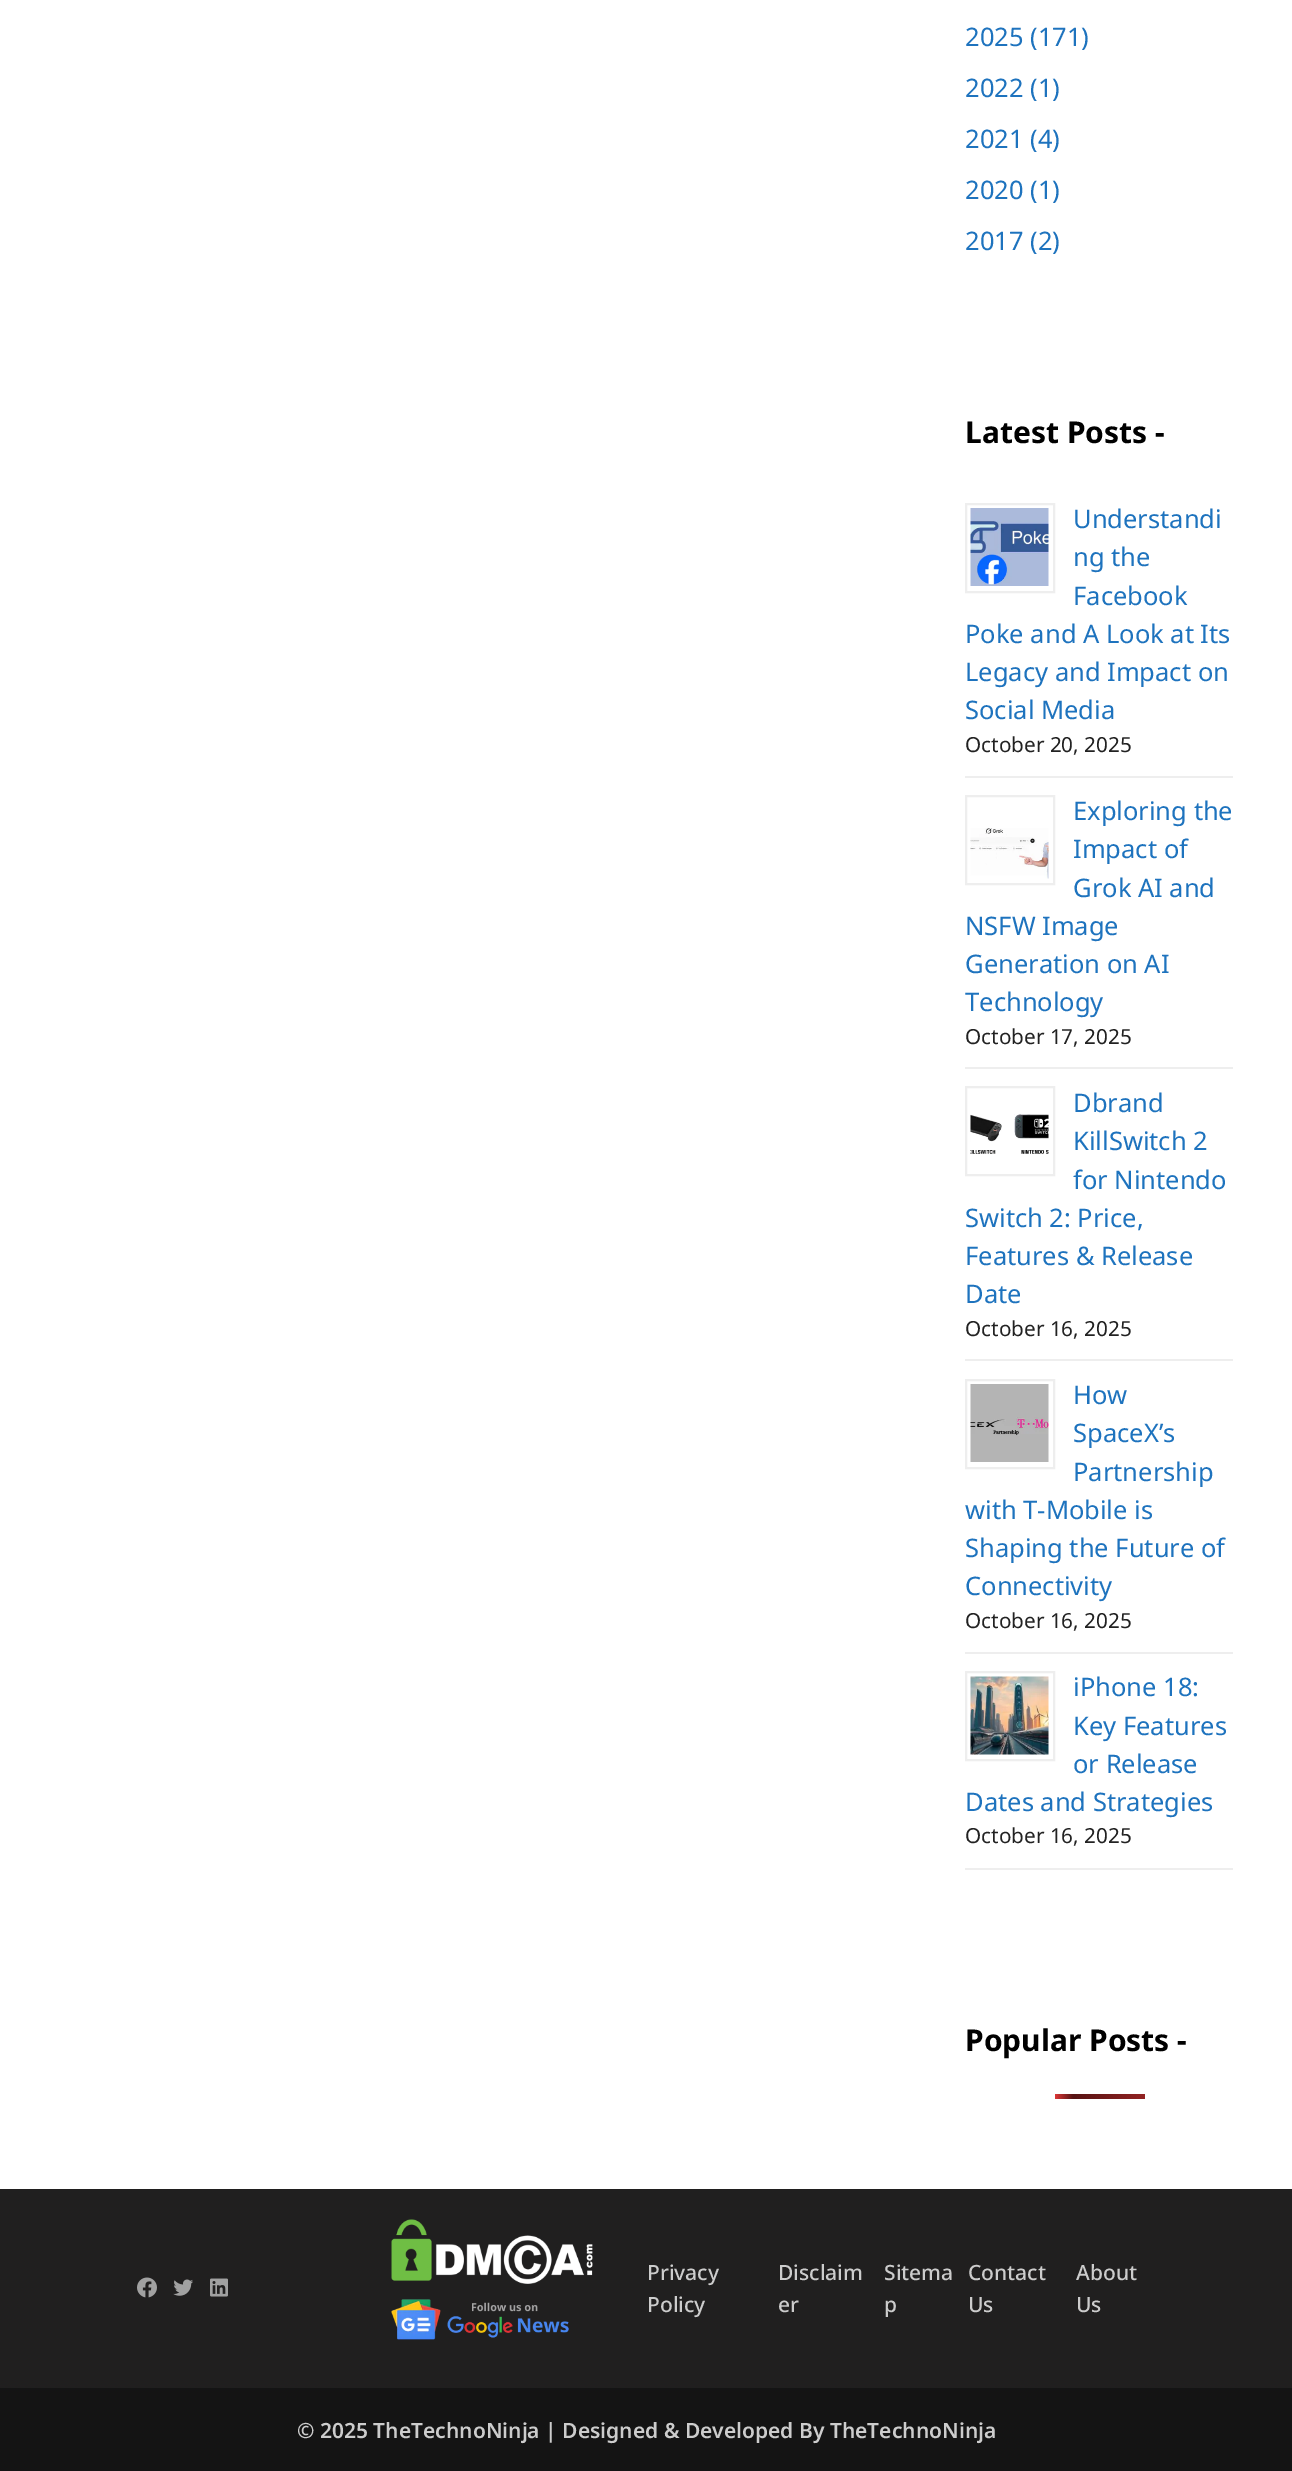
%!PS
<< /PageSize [1292 2471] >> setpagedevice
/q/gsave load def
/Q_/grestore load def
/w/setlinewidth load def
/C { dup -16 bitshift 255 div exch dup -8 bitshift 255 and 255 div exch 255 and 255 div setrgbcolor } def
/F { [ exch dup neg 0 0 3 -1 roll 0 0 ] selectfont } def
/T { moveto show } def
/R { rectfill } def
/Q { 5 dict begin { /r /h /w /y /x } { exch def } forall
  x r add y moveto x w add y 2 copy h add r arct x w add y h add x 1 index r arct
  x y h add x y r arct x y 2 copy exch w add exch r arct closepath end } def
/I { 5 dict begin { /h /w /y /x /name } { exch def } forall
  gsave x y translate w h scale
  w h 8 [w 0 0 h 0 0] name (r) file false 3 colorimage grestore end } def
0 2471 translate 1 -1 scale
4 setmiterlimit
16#FFFFFF C
0 0 1292 2471 R
/NotoSans-Regular 25.5 F
16#1E73BE C
(2025 \(171\)) 965 46 T
(2022 \(1\)) 965 97 T
(2021 \(4\)) 965 148 T
(2020 \(1\)) 965 199 T
(2017 \(2\)) 965 250 T
/NotoSans-Bold 30 F
16#000000 C
(Latest Posts -) 965 443 T
16#EEEEEE C
965 776 268 2 R
2 w
966 504 88 88 rectstroke
(1.rgb) 970 508 79 78 I
/NotoSans-Regular 25.5 F
16#1E73BE C
(Understandi) 1073 528 T
(ng the) 1073 566 T
(Facebook) 1073 605 T
(Poke and A Look at Its) 965 643 T
(Legacy and Impact on) 965 681 T
(Social Media) 965 719 T
/NotoSans-Regular 20.75 F
16#222222 C
(October 20, 2025) 965 752 T
16#EEEEEE C
965 1067 268 2 R
966 796 88 88 rectstroke
(2.rgb) 970 828 79 51 I
/NotoSans-Regular 25.5 F
16#1E73BE C
(Exploring the) 1073 820 T
(Impact of) 1073 858 T
(Grok AI and) 1073 897 T
(NSFW Image) 965 935 T
(Generation on AI) 965 973 T
(Technology) 965 1011 T
/NotoSans-Regular 20.75 F
16#222222 C
(October 17, 2025) 965 1044 T
16#EEEEEE C
965 1359 268 2 R
966 1087 88 88 rectstroke
(3.rgb) 970 1114 79 40 I
/NotoSans-Regular 25.5 F
16#1E73BE C
(Dbrand) 1073 1112 T
(KillSwitch 2) 1073 1150 T
(for Nintendo) 1073 1189 T
(Switch 2: Price,) 965 1227 T
(Features & Release) 965 1265 T
(Date) 965 1303 T
/NotoSans-Regular 20.75 F
16#222222 C
(October 16, 2025) 965 1336 T
16#EEEEEE C
965 1652 268 2 R
966 1380 88 88 rectstroke
(4.rgb) 970 1384 79 78 I
/NotoSans-Regular 25.5 F
16#1E73BE C
(How) 1073 1404 T
(SpaceX’s) 1073 1442 T
(Partnership) 1073 1481 T
(with T-Mobile is) 965 1519 T
(Shaping the Future of) 965 1557 T
(Connectivity) 965 1595 T
/NotoSans-Regular 20.75 F
16#222222 C
(October 16, 2025) 965 1628 T
16#EEEEEE C
965 1868 268 2 R
966 1672 88 88 rectstroke
(5.rgb) 970 1676 79 79 I
/NotoSans-Regular 25.5 F
16#1E73BE C
(iPhone 18:) 1073 1696 T
(Key Features) 1073 1735 T
(or Release) 1073 1773 T
(Dates and Strategies) 965 1811 T
/NotoSans-Regular 20.75 F
16#222222 C
(October 16, 2025) 965 1843 T
/NotoSans-Bold 30 F
16#000000 C
(Popular Posts -) 965 2051 T
q 1055 2094 90 5 2.5 Q clip newpath
<< /ShadingType 2 /ColorSpace /DeviceRGB /Coords [1055 2096 1235 2096] /Extend [true true] /Function << /FunctionType 3 /Domain [0 1] /Functions [<< /FunctionType 2 /Domain [0 1] /C0 [.867 .216 .216] /C1 [.341 .075 .075] /N 1 >> << /FunctionType 2 /Domain [0 1] /C0 [.341 .075 .075] /C1 [.867 .216 .216] /N 1 >>] /Bounds [.1] /Encode [0 1 0 1] >> >> shfill Q_
16#201F1F C
0 2189 1292 199 R
(6.rgb) 137 2277 20 21 I
(7.rgb) 173 2279 20 17 I
(8.rgb) 210 2278 18 19 I
(9.rgb) 391 2219 202 65 I
(10.rgb) 391 2299 178 41 I
/NotoSans-Medium 21 F
16#CCCCCC C
(Privacy) 647 2280 T
(Policy) 647 2312 T
(Disclaim) 778 2280 T
(er) 778 2312 T
(Sitema) 884 2280 T
(p) 884 2312 T
(Contact) 968 2280 T
(Us) 968 2312 T
(About) 1076 2280 T
(Us) 1076 2312 T
16#141414 C
0 2388 1292 83 R
/NotoSans-SemiBold 21 F
16#CCCCCC C
(© 2025 TheTechnoNinja | Designed & Developed By TheTechnoNinja) 297 2438 T
showpage
